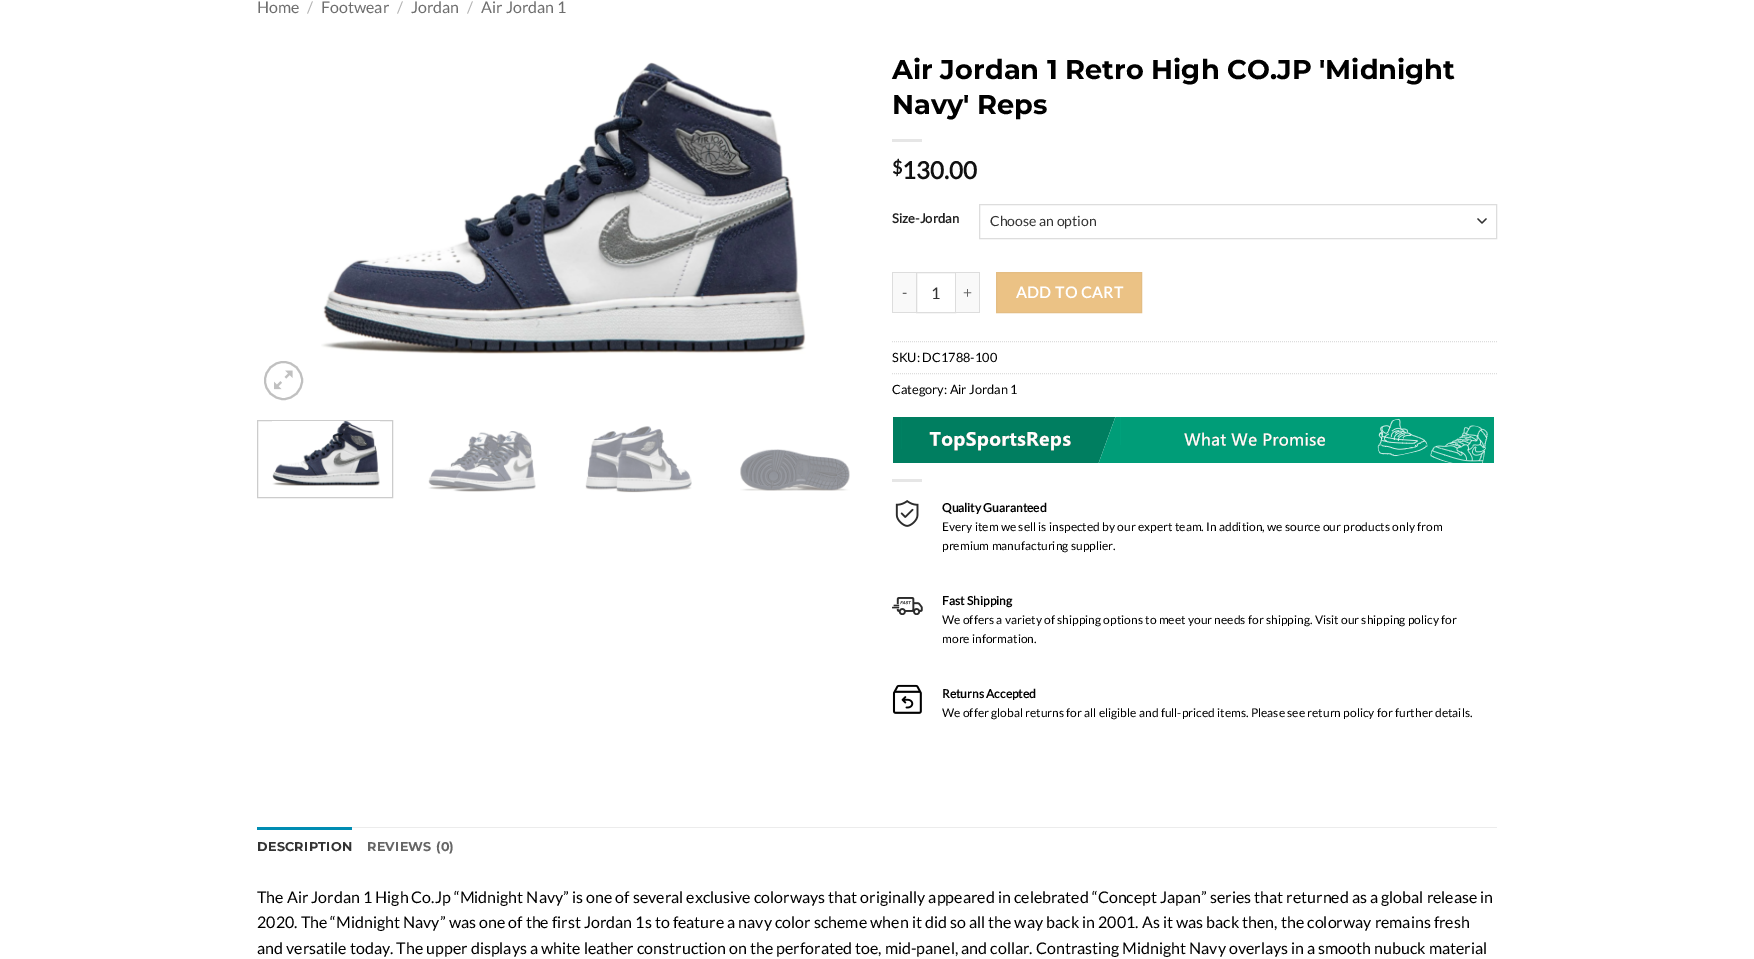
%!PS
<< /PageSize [1754 959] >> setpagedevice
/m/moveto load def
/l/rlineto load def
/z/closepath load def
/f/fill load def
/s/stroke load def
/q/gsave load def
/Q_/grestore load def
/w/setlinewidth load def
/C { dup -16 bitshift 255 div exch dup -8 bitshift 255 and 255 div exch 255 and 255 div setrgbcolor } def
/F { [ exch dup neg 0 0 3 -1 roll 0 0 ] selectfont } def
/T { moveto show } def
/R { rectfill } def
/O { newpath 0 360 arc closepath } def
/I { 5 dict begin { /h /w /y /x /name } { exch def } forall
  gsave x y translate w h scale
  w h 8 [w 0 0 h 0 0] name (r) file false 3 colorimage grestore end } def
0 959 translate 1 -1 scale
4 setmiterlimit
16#FFFFFF C
0 0 1754 959 R
/Lato-Regular 16 F
16#6E6E6E C
(Home) 257 13 T
16#B2B2B2 C
(/) 307 13 T
16#6E6E6E C
(Footwear) 321 13 T
16#B2B2B2 C
(/) 397 13 T
16#6E6E6E C
(Jordan) 411 13 T
16#B2B2B2 C
(/) 467 13 T
16#6E6E6E C
(Air Jordan 1) 481 13 T
(1.rgb) 321 62 485 292 I
16#C0C0C0 C
2 w
283.5 380.5 18.5 O s
(2.rgb) 274 370 19 20 I
16#CCCCCC C
1 w
257.5 420.5 135 77 rectstroke
(3.rgb) 272 421 108 65 I
(4.rgb) 428 431 108 61 I
(5.rgb) 585 426 107 67 I
(6.rgb) 740 449 110 42 I
/Montserrat-Bold 27.2 F
16#000000 C
(Air Jordan 1 Retro High CO.JP 'Midnight) 892 79 T
(Navy' Reps) 892 114 T
16#E6E6E6 C
892 139 30 3 R
/Lato-Bold 18 F
16#111111 C
($) 892 174 T
/Lato-Bold 24 F
(130.00) 902 179 T
/Lato-Bold 13 F
16#222222 C
(Size-Jordan) 892 223 T
16#333333 C
1.3 w
1 setlinecap
1 setlinejoin
1478 219 m 4 4 l 4 -4 l s
16#DDDDDD C
1 w
0 setlinecap
0 setlinejoin
979.5 204.5 517 34 rectstroke
/Lato-Regular 14 F
16#333333 C
(Choose an option) 990 226 T
16#F9F9F9 C
893 273 23 39 R
16#DDDDDD C
892 272 24 1 R
892 312 24 1 R
892 272 1 41 R
/Lato-Regular 15.5 F
16#666666 C
902 298 m .5 0 (-) ashow
16#DDDDDD C
916.5 272.5 39 40 rectstroke
/Lato-Regular 16 F
16#333333 C
(1) 931 299 T
16#F9F9F9 C
956 273 23 39 R
16#DDDDDD C
956 272 24 1 R
979 272 1 41 R
956 312 24 1 R
/Lato-Regular 15.5 F
16#666666 C
963 298 m .5 0 (+) ashow
16#EBC285 C
996.5 272.5 m 145 0 l 0 40 l -145 0 l z q f Q_
16#E4BD83 C
s
/Lato-Bold 15.5 F
16#FFFFFF C
1016 298 m .5 0 (ADD TO CART) ashow
16#DDDDDD C
[1 1] 0 setdash
892 341.5 m 605 0 l s
/Lato-Regular 12.75 F
16#000000 C
(SKU: DC1788-100) 892 362 T
16#DDDDDD C
892 373.5 m 605 0 l s
16#000000 C
(Category: Air Jordan 1) 892 394 T
(7.rgb) 893 417 601 46 I
16#E6E6E6 C
892 479 30 3 R
(8.rgb) 895 500 24 27 I
/Lato-Bold 12 F
16#000000 C
(Quality Guaranteed) 942 512 T
/Lato-Regular 12 F
(Every item we sell is inspected by our expert team. In addition, we source our products only from) 942 531 T
(premium manufacturing supplier.) 942 550 T
(9.rgb) 892 597 31 18 I
/Lato-Bold 12 F
(Fast Shipping) 942 605 T
/Lato-Regular 12 F
(We offers a variety of shipping options to meet your needs for shipping. Visit our shipping policy for) 942 624 T
(more information.) 942 643 T
(10.rgb) 892 684 30 30 I
/Lato-Bold 12 F
(Returns Accepted) 942 698 T
/Lato-Regular 12 F
(We offer global returns for all eligible and full-priced items. Please see return policy for further details.) 942 717 T
16#ECECEC C
352 827 1145 1 R
16#008CB2 C
257 827 95 3 R
/Montserrat-Bold 12.75 F
16#333333 C
257 851 m .25 0 (DESCRIPTION) ashow
16#666666 C
367 851 m .25 0 (REVIEWS \(0\)) ashow
/Lato-Regular 16 F
16#000000 C
(The Air Jordan 1 High Co.Jp “Midnight Navy” is one of several exclusive colorways that originally appeared in celebrated “Concept Japan” series that returned as a global release in) 257 903 T
(2020. The “Midnight Navy” was one of the first Jordan 1s to feature a navy color scheme when it did so all the way back in 2001. As it was back then, the colorway remains fresh) 257 928 T
(and versatile today. The upper displays a white leather construction on the perforated toe, mid-panel, and collar. Contrasting Midnight Navy overlays in a smooth nubuck material) 257 954 T
showpage
